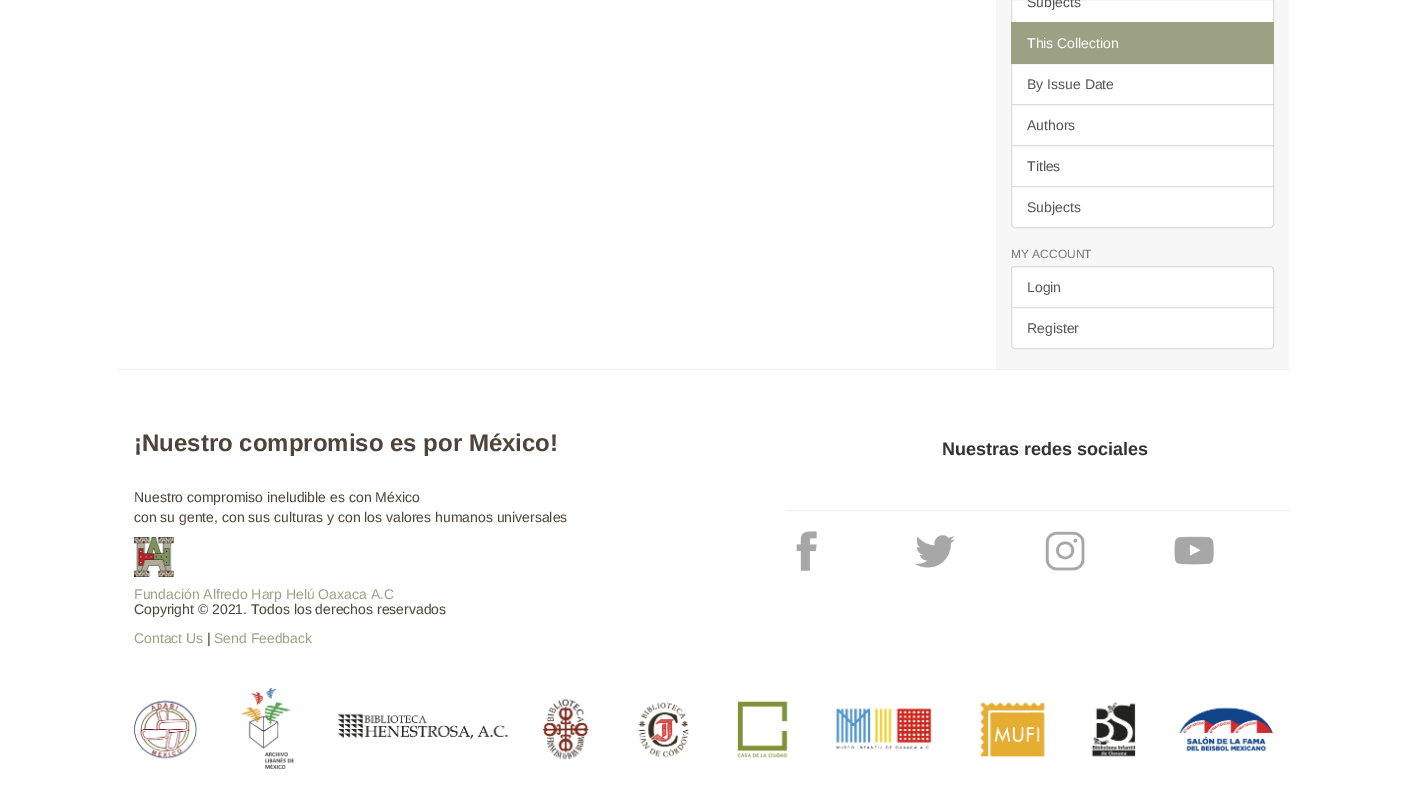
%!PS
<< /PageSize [1407 799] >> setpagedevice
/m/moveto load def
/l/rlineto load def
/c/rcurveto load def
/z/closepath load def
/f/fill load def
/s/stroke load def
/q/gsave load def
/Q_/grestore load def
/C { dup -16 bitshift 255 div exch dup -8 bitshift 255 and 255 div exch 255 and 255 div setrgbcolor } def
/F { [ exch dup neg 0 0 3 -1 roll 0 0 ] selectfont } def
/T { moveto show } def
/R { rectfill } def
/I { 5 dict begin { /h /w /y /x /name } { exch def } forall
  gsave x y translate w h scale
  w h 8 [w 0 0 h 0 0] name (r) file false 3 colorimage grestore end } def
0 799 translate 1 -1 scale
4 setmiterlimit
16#FFFFFF C
0 0 1407 799 R
16#F7F7F7 C
996 0 293 369 R
16#FFFFFF C
1011.5 -.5 m 262 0 l 0 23 l -262 0 l z q f Q_
16#DDDDDD C
s
/LiberationSans-Regular 14 F
16#555555 C
(Subjects) 1027 7 T
16#FFFFFF C
1011.5 63.5 m 262 0 l 0 41 l -262 0 l z q f Q_
16#DDDDDD C
s
16#9CA183 C
1011 22 263 42 R
16#FFFFFF C
(This Collection) 1027 48 T
16#555555 C
(By Issue Date) 1027 89 T
16#FFFFFF C
1011.5 104.5 m 262 0 l 0 41 l -262 0 l z q f Q_
16#DDDDDD C
s
16#555555 C
(Authors) 1027 130 T
16#FFFFFF C
1011.5 145.5 m 262 0 l 0 41 l -262 0 l z q f Q_
16#DDDDDD C
s
16#555555 C
(Titles) 1027 171 T
16#FFFFFF C
1011.5 186.5 m 262 0 l 0 37.5 l 0 2 -1.5 3.5 -3.5 3.5 c -255 0 l -2 0 -3.5 -1.5 -3.5 -3.5 c z q f Q_
16#DDDDDD C
s
16#555555 C
(Subjects) 1027 212 T
/LiberationSans-Regular 12 F
16#777777 C
(MY ACCOUNT) 1011 258 T
16#FFFFFF C
1015 266.5 m 255 0 l 2 0 3.5 1.5 3.5 3.5 c 0 37.5 l -262 0 l 0 -37.5 l 0 -2 1.5 -3.5 3.5 -3.5 c z q f Q_
16#DDDDDD C
s
/LiberationSans-Regular 14 F
16#555555 C
(Login) 1027 292 T
16#FFFFFF C
1011.5 307.5 m 262 0 l 0 37.5 l 0 2 -1.5 3.5 -3.5 3.5 c -255 0 l -2 0 -3.5 -1.5 -3.5 -3.5 c z q f Q_
16#DDDDDD C
s
16#555555 C
(Register) 1027 333 T
16#EEEEEE C
119 369 1170 1 R
/LiberationSans-Bold 24 F
16#4F443A C
(¡Nuestro compromiso es por México!) 134 451 T
/LiberationSans-Regular 14 F
(Nuestro compromiso ineludible es con México) 134 502 T
(con su gente, con sus culturas y con los valores humanos universales) 134 522 T
(1.rgb) 134 537 40 40 I
16#9CA183 C
(Fundación Alfredo Harp Helú Oaxaca A.C) 134 599 T
16#4F443A C
(Copyright © 2021. Todos los derechos reservados) 134 614 T
16#9CA183 C
(Contact Us) 134 643 T
16#4F443A C
(|) 207 643 T
16#9CA183 C
(Send Feedback) 214 643 T
(2.rgb) 134 688 1139 81 I
/LiberationSans-Bold 18 F
16#333333 C
(Nuestras redes sociales) 942 455 T
16#EEEEEE C
786 510 503 1 R
(3.rgb) 796 531 21 40 I
(4.rgb) 915 535 40 33 I
(5.rgb) 1045 531 40 40 I
(6.rgb) 1174 536 40 29 I
showpage
